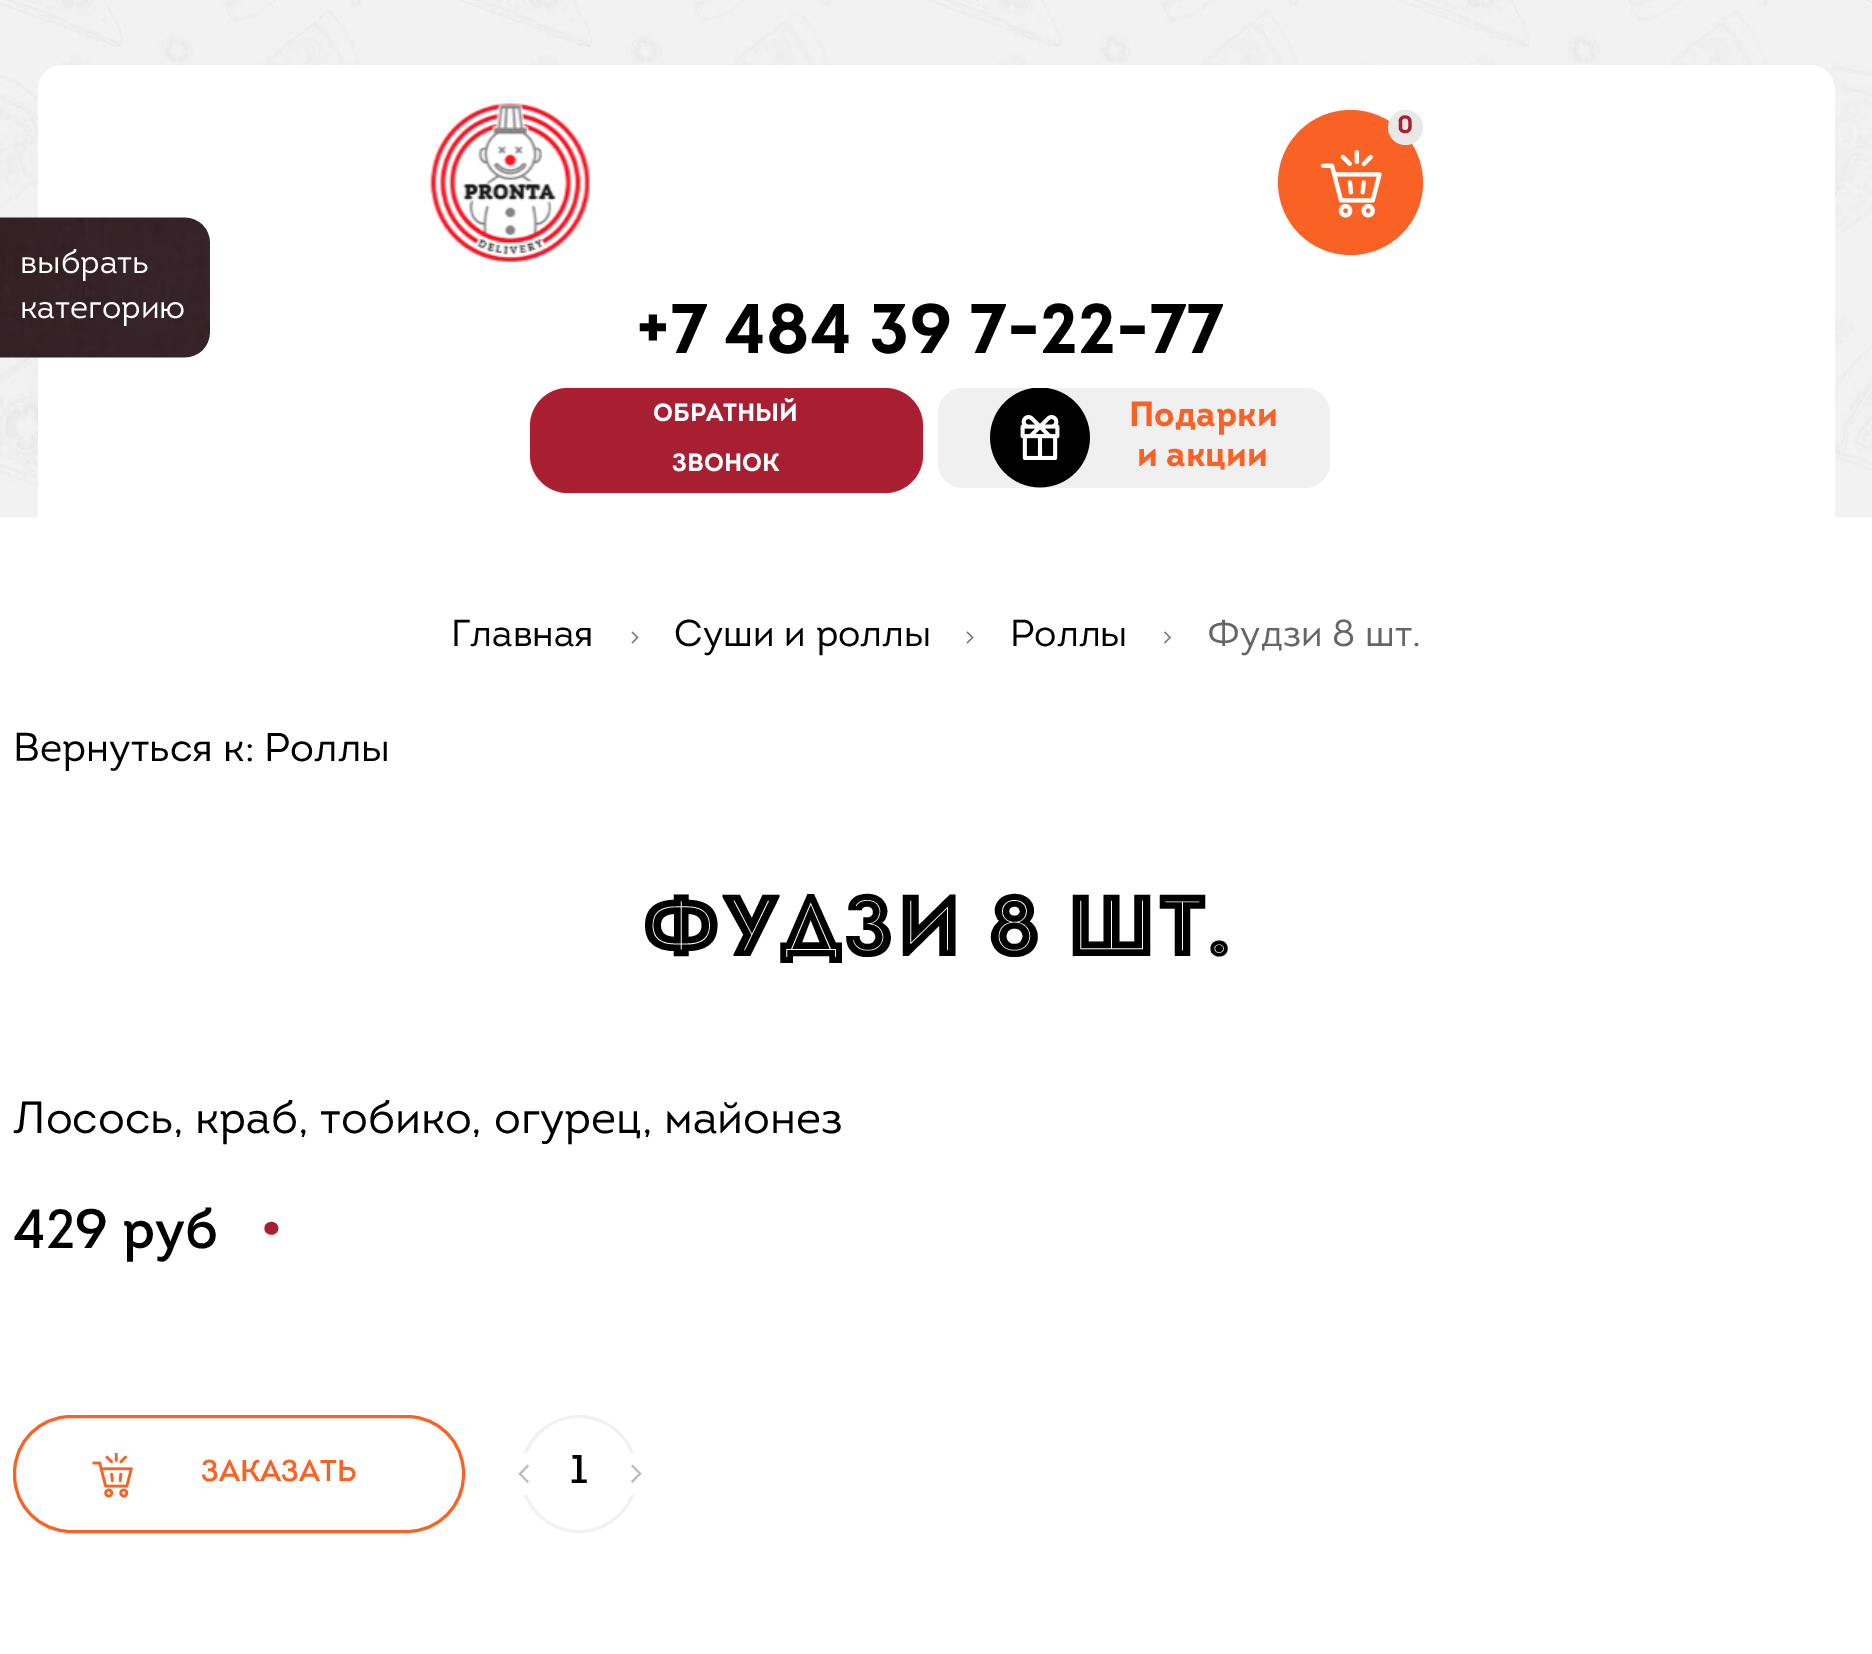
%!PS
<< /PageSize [1872 1654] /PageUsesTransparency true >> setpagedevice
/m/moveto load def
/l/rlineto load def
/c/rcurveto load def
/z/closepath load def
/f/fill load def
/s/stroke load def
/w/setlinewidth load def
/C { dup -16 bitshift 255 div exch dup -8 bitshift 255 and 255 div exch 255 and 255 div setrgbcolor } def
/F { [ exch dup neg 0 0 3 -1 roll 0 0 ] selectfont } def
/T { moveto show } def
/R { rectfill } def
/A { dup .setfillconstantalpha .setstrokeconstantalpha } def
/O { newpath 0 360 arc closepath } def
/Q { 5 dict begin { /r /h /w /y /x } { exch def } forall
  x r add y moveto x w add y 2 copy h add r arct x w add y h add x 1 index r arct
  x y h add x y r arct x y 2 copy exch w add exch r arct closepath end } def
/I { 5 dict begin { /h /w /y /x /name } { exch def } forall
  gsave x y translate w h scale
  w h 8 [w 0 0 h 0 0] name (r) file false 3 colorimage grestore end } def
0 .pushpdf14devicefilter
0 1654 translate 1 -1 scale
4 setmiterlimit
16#FFFFFF C
0 0 1872 1654 R
(1.rgb) 0 0 1872 518 I
63 65 m 1747 0 l 14 0 25 11 25 25 c 0 428 l -1797 0 l 0 -428 l 0 -14 11 -25 25 -25 c z f
(2.rgb) 429 103 161 159 I
16#F96224 C
1350.5 182.5 72.5 O f
(3.rgb) 1320 150 62 68 I
16#E8E8E8 C
1405.5 127.5 17.5 O f
/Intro-Bold 25 F
16#A81F2F C
(0) 1397 133 T
/Intro-Bold 70 F
16#000000 C
(+7 484 39 7-22-77) 636 353 T
16#A81F31 C
530 388 393 105 38 Q f
0.2 A
16#CE162F C
3 w
531.5 389.5 390 102 36.5 Q s
/Intro-Bold 25 F
1 A
16#FFFFFF C
(ОБРАТНЫЙ) 653 421 T
(ЗВОНОК) 672 471 T
16#F0F0F0 C
938 388 392 100 25 Q f
(4.rgb) 990 388 100 100 I
/Intro-Bold 35 F
16#F96224 C
(Подарки) 1129 426 T
(и акции) 1137 466 T
(5.rgb) 0 217 211 141 I
/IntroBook-Regular 32.5 F
16#FFFFFF C
(выбрать) 20 273 T
(категорию) 20 318 T
/IntroBook-Regular 37.5 F
16#000000 C
(Главная) 451 646 T
(6.rgb) 631 631 8 13 I
(Суши и роллы) 674 646 T
(6.rgb) 966 631 8 13 I
(Роллы) 1010 646 T
(7.rgb) 1164 631 7 13 I
16#666666 C
(Фудзи 8 шт.) 1207 646 T
/IntroBook-Regular 40 F
16#000000 C
(Вернуться к: Роллы) 13 761 T
/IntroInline-Regular 87.5 F
(Фудзи 8 шт.) 641 956 T
/IntroBook-Regular 45 F
(Лосось, краб, тобико, огурец, майонез) 13 1133 T
/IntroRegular-Regular 55 F
(429 руб) 13 1248 T
16#A81F2F C
(•) 260 1248 T
16#F96224 C
14.5 1416.5 449 115 56.5 Q s
(8.rgb) 92 1453 41 45 I
/IntroRegular-Regular 30 F
(ЗАКАЗАТЬ) 201 1481 T
16#F1F1F1 C
579 1474 57.5 O s
16#FFFFFF C
520 1453 7 42 R
16#BDBDBD C
529 1466 m -1.5 -1.5 l -9 9.5 l 9 9 l 1.5 -1.5 l -7.5 -7.5 l z f
/IntroRegular-Regular 40 F
16#000000 C
(1) 570 1483 T
16#FFFFFF C
631 1453 7 42 R
16#BDBDBD C
631 1481.5 m 1.5 1.5 l 9 -9.5 l -9 -9 l -1.5 1.5 l 7.5 7.5 l z f
.poppdf14devicefilter showpage
